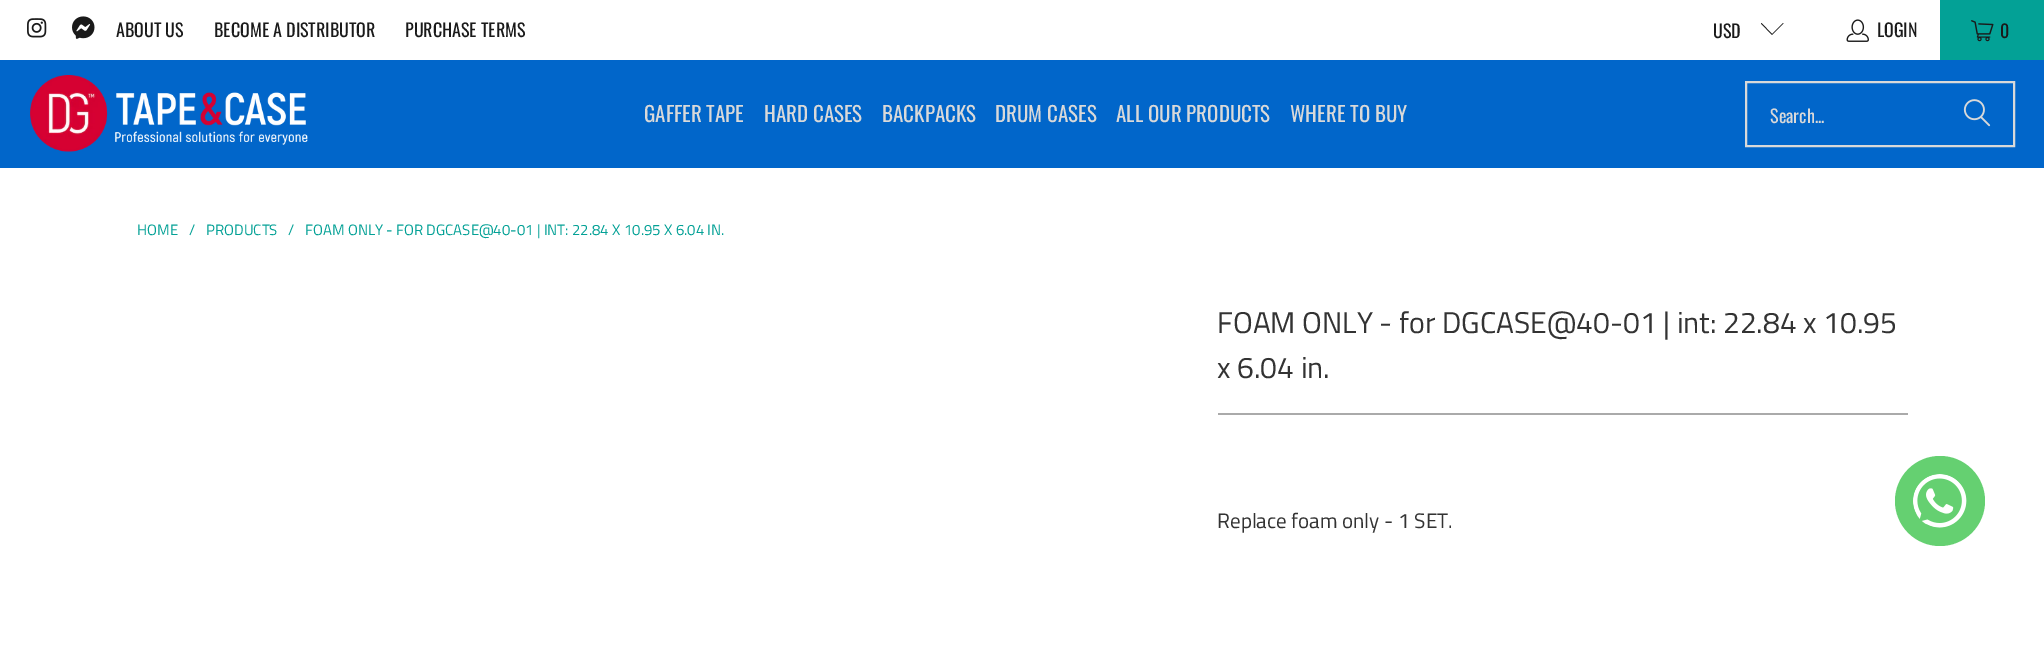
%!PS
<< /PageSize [2044 645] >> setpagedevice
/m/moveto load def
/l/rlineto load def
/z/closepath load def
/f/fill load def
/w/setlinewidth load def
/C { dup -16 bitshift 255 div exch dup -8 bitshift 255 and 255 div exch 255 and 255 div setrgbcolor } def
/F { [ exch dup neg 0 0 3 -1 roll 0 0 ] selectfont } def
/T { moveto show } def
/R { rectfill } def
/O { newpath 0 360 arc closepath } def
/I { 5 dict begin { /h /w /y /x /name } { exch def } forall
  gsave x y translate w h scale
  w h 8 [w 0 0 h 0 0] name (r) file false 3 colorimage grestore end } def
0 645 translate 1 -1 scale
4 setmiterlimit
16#FFFFFF C
0 0 2044 645 R
(1.rgb) 27 18 20 20 I
(2.rgb) 72 16 23 23 I
/Oswald-Regular 18 F
16#1A1A1A C
(ABOUT US) 116 37 T
(BECOME A DISTRIBUTOR) 214 37 T
(PURCHASE TERMS) 405 37 T
(USD) 1713 38 T
1772 35 m -11 -11.5 l .5 -.5 l 10.5 11 l 11 -11 l .5 .5 l z f
(3.rgb) 1846 19 23 23 I
(LOGIN) 1877 37 T
16#03A196 C
1940 0 104 60 R
(4.rgb) 1971 20 23 22 I
16#1A1A1A C
(0) 2000 38 T
16#0166CA C
0 60 2044 108 R
(5.rgb) 30 75 278 77 I
/Oswald-Regular 21 F
16#D9D9D9 C
(GAFFER TAPE) 644 122 T
(HARD CASES) 764 122 T
(BACKPACKS) 882 122 T
(DRUM CASES) 995 122 T
(ALL OUR PRODUCTS) 1116 122 T
(WHERE TO BUY) 1290 122 T
2 w
1746 82 268 64 rectstroke
/Oswald-Regular 18 F
(Search...) 1770 123 T
(6.rgb) 1963 99 28 28 I
/TitilliumWeb-Regular 15 F
16#03A196 C
(HOME) 137 235 T
(/) 189 235 T
(PRODUCTS) 206 235 T
(/) 288 235 T
(FOAM ONLY - FOR DGCASE@40-01 | INT: 22.84 X 10.95 X 6.04 IN.) 305 235 T
/TitilliumWeb-Regular 30 F
16#333333 C
(FOAM ONLY - for DGCASE@40-01 | int: 22.84 x 10.95) 1217 333 T
(x 6.04 in.) 1217 378 T
16#AAAAAA C
1218 413 690 2 R
/TitilliumWeb-Regular 21 F
16#333333 C
(Replace foam only - 1 SET.) 1217 528 T
16#65D071 C
1940 501 45 O f
(7.rgb) 1913 474 54 54 I
showpage
